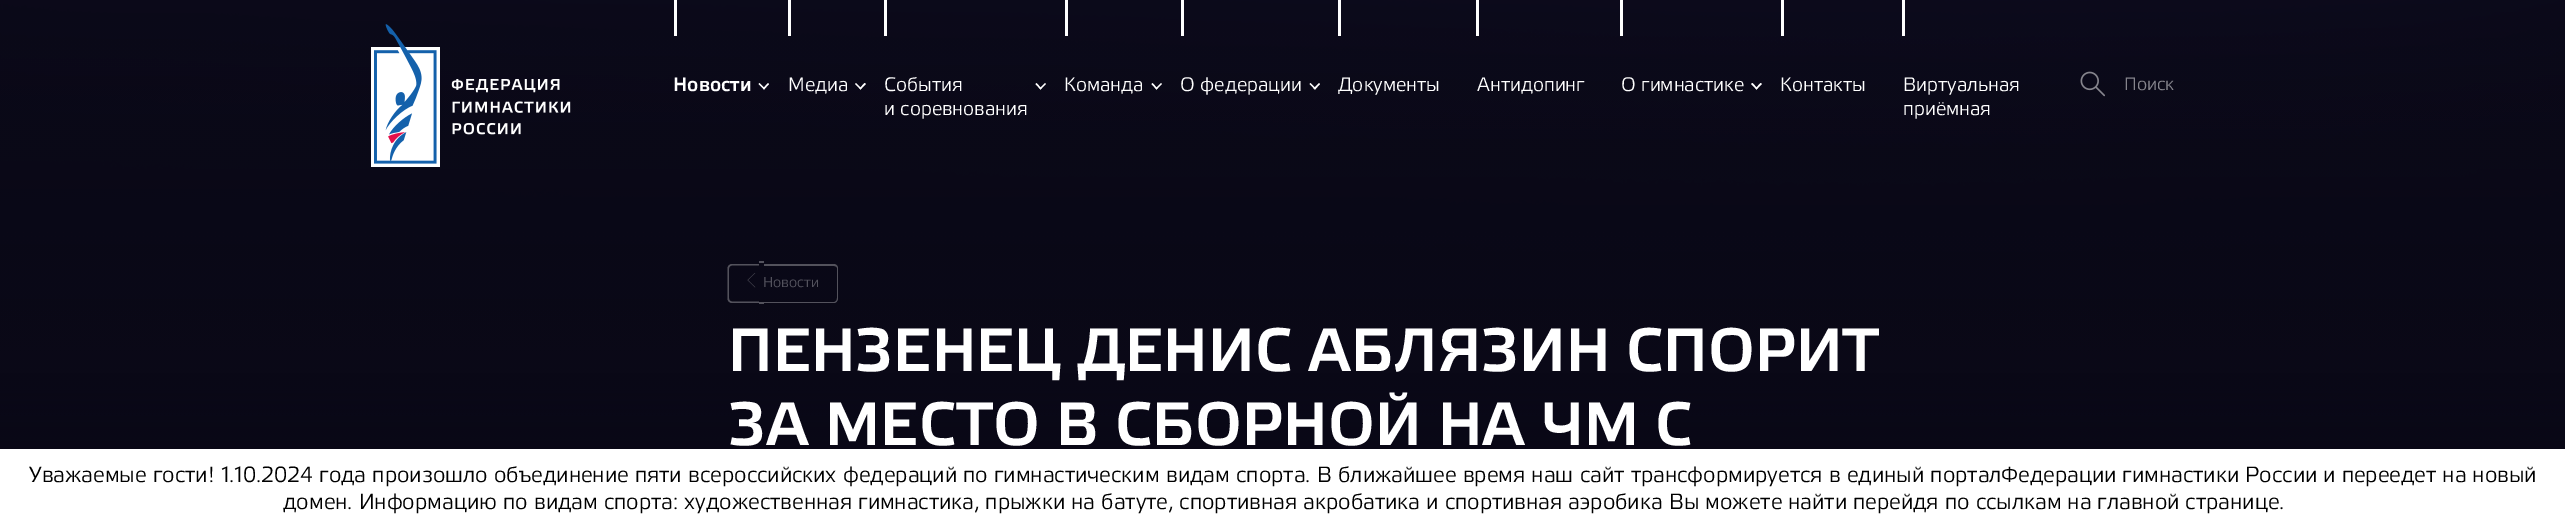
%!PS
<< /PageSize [2565 528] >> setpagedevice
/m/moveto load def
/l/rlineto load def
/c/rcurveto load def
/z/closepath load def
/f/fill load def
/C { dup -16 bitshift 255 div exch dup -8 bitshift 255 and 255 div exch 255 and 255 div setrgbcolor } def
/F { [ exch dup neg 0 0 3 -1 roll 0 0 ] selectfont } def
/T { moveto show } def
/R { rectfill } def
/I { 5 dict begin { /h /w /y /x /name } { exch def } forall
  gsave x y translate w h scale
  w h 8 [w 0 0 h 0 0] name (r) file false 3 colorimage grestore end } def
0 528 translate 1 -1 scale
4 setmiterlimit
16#0F0D23 C
0 0 2565 528 R
(3.rgb) 0 0 2565 449 I
(1.rgb) 371 24 200 143 I
16#FFFFFF C
674 0 3 36 R
/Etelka-Medium 19.5 F
(Новости) 673 91 T
768 83 m 1 1 l -5 5.5 l -1 -1 l z f
759.5 83 m 5.5 5.5 l -1 1 l -5.5 -5.5 l z f
788 0 3 36 R
/Etelka-Light 19.5 F
(Медиа) 788 91 T
864.5 83 m 1.5 1 l -5.5 5.5 l -1 -1 l z f
856 83 m 5.5 5.5 l -1 1 l -5.5 -5.5 l z f
884 0 3 36 R
(События) 884 91 T
1045 83 m 1 1 l -5.5 5.5 l -1 -1 l z f
1036.5 83 m 5 5.5 l -1 1 l -5 -5.5 l z f
(и соревнования) 884 115 T
1065 0 3 36 R
(Команда) 1064 91 T
1161 83 m 1 1 l -5.5 5.5 l -1 -1 l z f
1152.5 83 m 5 5.5 l -1 1 l -5 -5.5 l z f
1181 0 3 36 R
(О федерации) 1180 91 T
1319 83 m 1 1 l -5 5.5 l -1.5 -1 l z f
1310.5 83 m 5.5 5.5 l -1 1 l -5.5 -5.5 l z f
1338 0 3 36 R
(Документы) 1338 91 T
1476 0 3 36 R
(Антидопинг) 1477 91 T
1620 0 3 36 R
(О гимнастике) 1621 91 T
1760.5 83 m 1.5 1 l -5.5 5.5 l -1 -1 l z f
1752.5 83 m 5 5.5 l -1 1 l -5.5 -5.5 l z f
1781 0 3 36 R
(Контакты) 1780 91 T
1902 0 3 36 R
(Виртуальная) 1903 91 T
(приёмная) 1903 115 T
(2.rgb) 2080 71 25 26 I
/Etelka-Light 18 F
16#85848C C
(Поиск) 2124 90 T
16#53525C C
732 264 m 27 0 l 0 39 l -27 0 l -2.5 0 -4.5 -2 -4.5 -4.5 c 0 -30 l 0 -2.5 2 -4.5 4.5 -4.5 c z 732 265.5 m 27 0 l 0 36 l -27 0 l -1.5 0 -3 -1.5 -3 -3 c 0 -30 l 0 -1.5 1.5 -3 3 -3 c z eofill
16#53525D C
759 261 5 2 R
16#53525C C
759 302 5 2 R
764 264 m 70 0 l 2 0 4 2 4 4 c 0 30 l 0 3 -2 5 -4 5 c -70 0 l z 764 266 m 70 0 l 2 0 3 1 3 2 c 0 30 l 0 2 -1 4 -3 4 c -70 0 l z eofill
(4.rgb) 747 273 9 15 I
/Etelka-Light 14.5 F
16#53525D C
(Новости) 763 287 T
/Etelka-Medium 60.9 F
16#FFFFFF C
(ПЕНЗЕНЕЦ ДЕНИС АБЛЯЗИН СПОРИТ) 728 371 T
(ЗА МЕСТО В СБОРНОЙ НА ЧМ С) 728 445 T
0 449 2565 79 R
/Etelka-Light 21.95 F
16#000000 C
29 482 m .2 0 32 (Уважаемые гости! 1.10.2024 года произошло объединение пяти всероссийских федераций по гимнастическим видам спорта. В ближайшее время наш сайт трансформируется в единый портал) widthshow
(Федерации гимнастики России и переедет на новый) 2001 482 T
(домен. Информацию по видам спорта: художественная гимнастика, прыжки на батуте, спортивная акробатика и спортивная аэробика Вы можете найти перейдя по ссылкам на главной странице.) 283 509 T
showpage
